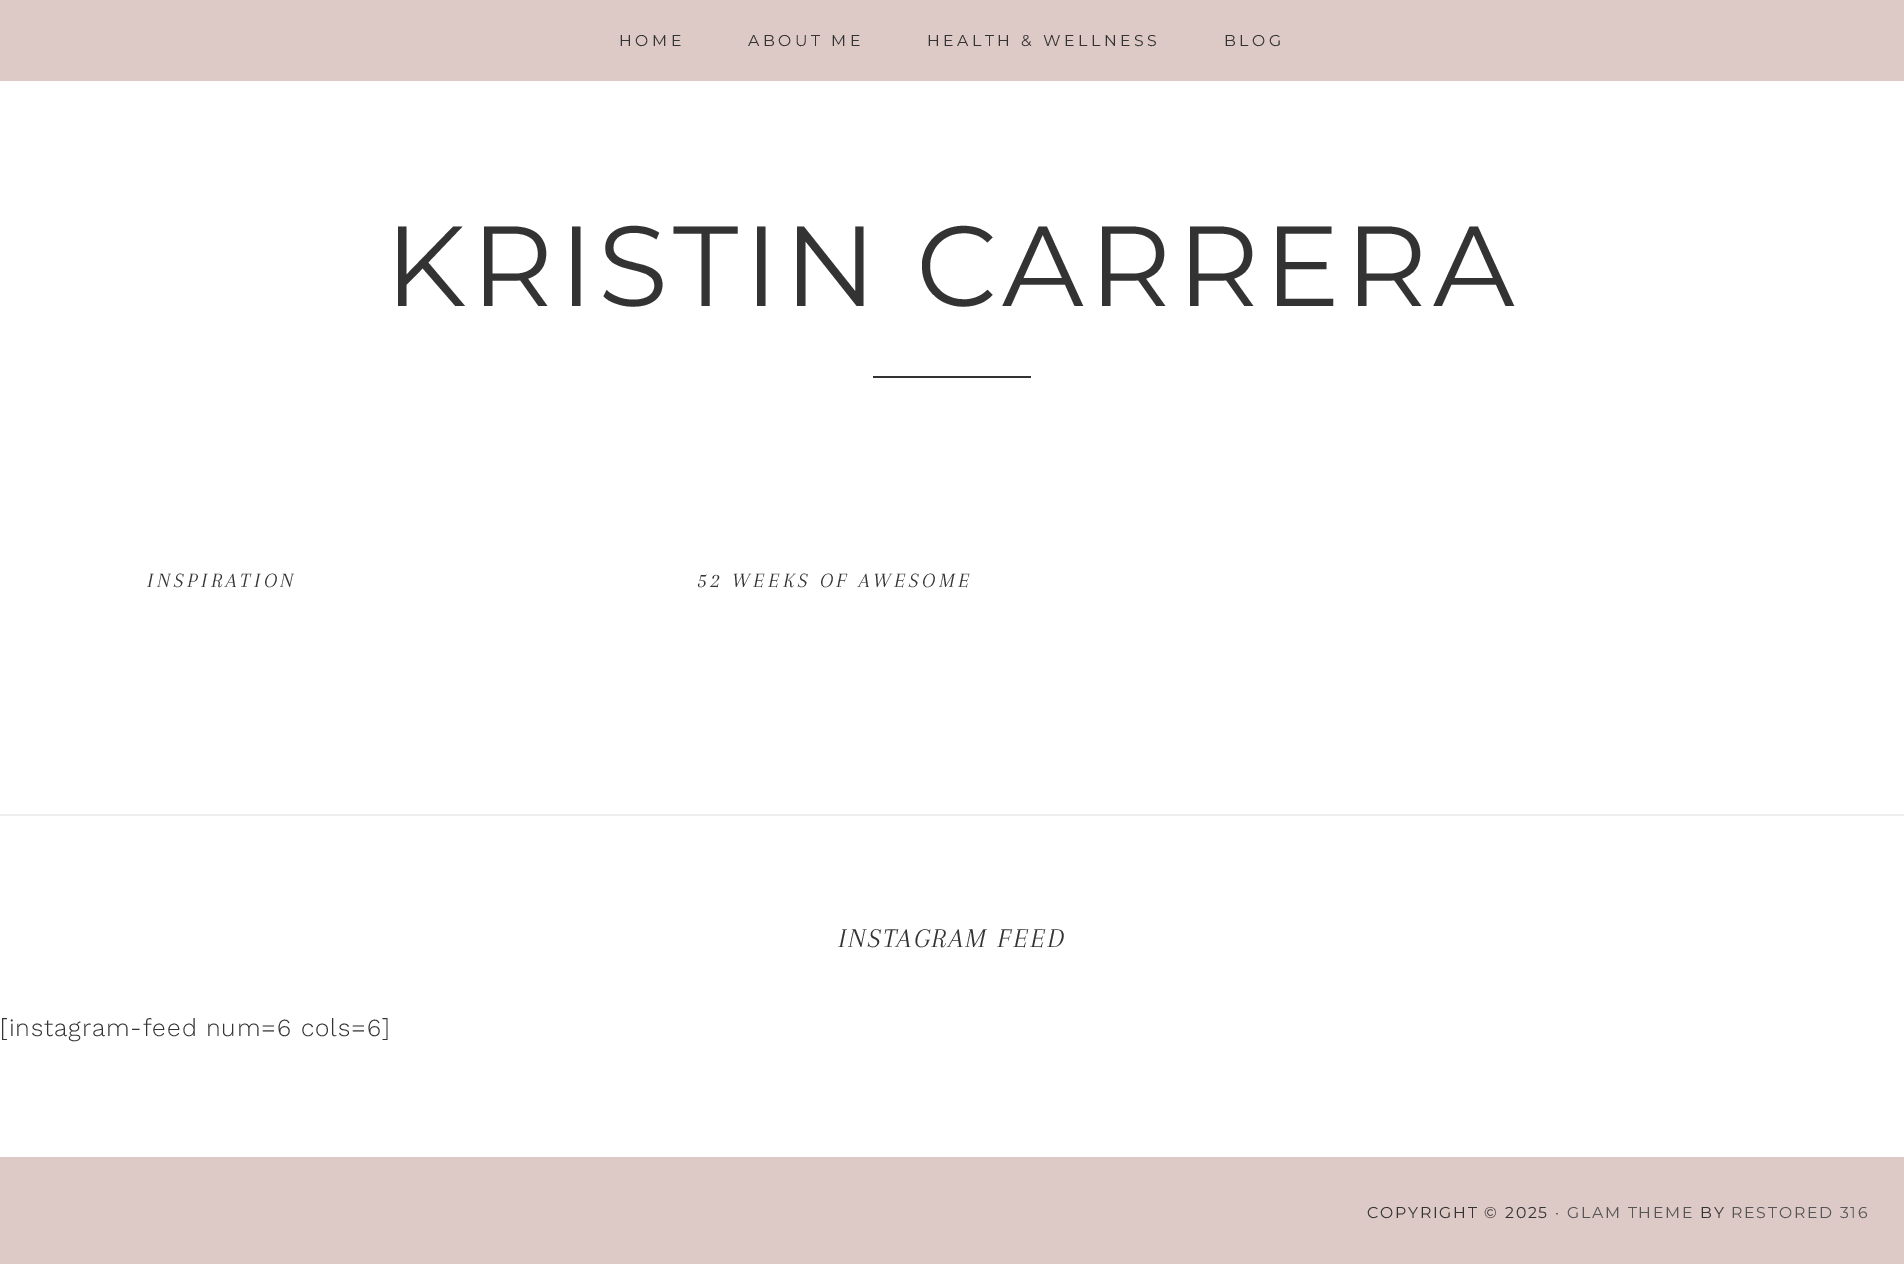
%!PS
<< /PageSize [1904 1264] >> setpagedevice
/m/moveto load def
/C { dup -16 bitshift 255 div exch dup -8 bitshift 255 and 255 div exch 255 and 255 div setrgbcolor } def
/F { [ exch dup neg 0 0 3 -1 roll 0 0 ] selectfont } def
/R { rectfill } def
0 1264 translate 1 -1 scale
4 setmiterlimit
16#FFFFFF C
0 0 1904 1264 R
16#DDC9C5 C
0 0 1904 81 R
/Montserrat-Thin 15.75 F
16#333333 C
619 46 m 3.5 0 (HOME) ashow
748 46 m 3.5 0 (ABOUT ME) ashow
927 46 m 3.5 0 (HEALTH & WELLNESS) ashow
1224 46 m 3.5 0 (BLOG) ashow
/Montserrat-Thin 113.75 F
385 306 m 5.25 0 (KRISTIN CARRERA) ashow
873 376 158 2 R
/Arapey-Italic 21 F
147 587 m 3.5 0 (INSPIRATION) ashow
697 587 m 3.5 0 (52 WEEKS OF AWESOME) ashow
16#EEEEEE C
0 814 1904 2 R
/Arapey-Italic 28 F
16#333333 C
838 947 m 1.75 0 (INSTAGRAM FEED) ashow
/WorkSans-Light 24.5 F
0 1036 m .9 0 ([instagram-feed num=6 cols=6]) ashow
16#DDC9C5 C
0 1157 1904 107 R
/Montserrat-Thin 15.75 F
16#333333 C
1367 1218 m 1.75 0 (COPYRIGHT © 2025 ·) ashow
16#555555 C
1567 1218 m 1.75 0 (GLAM THEME) ashow
16#333333 C
1700 1218 m 1.75 0 (BY) ashow
16#555555 C
1731 1218 m 1.75 0 (RESTORED 316) ashow
showpage
